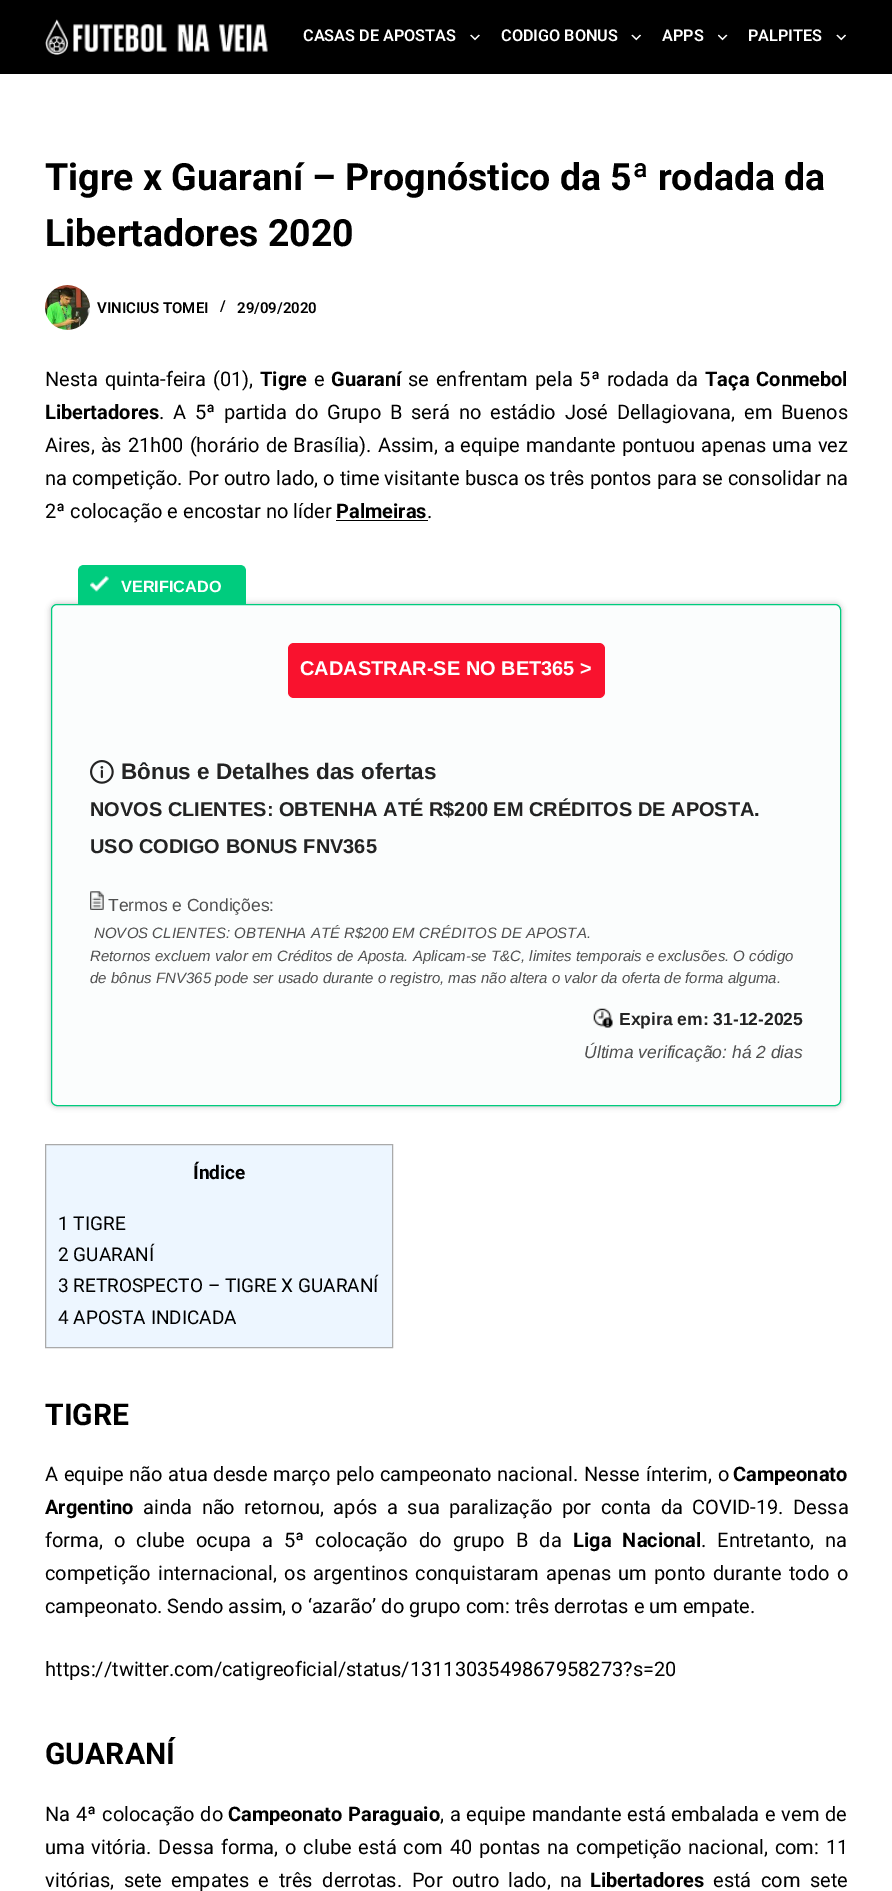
%!PS
<< /PageSize [892 1891] /PageUsesTransparency true >> setpagedevice
/m/moveto load def
/l/rlineto load def
/c/rcurveto load def
/z/closepath load def
/f/fill load def
/s/stroke load def
/q/gsave load def
/Q_/grestore load def
/C { dup -16 bitshift 255 div exch dup -8 bitshift 255 and 255 div exch 255 and 255 div setrgbcolor } def
/F { [ exch dup neg 0 0 3 -1 roll 0 0 ] selectfont } def
/T { moveto show } def
/R { rectfill } def
/A { dup .setfillconstantalpha .setstrokeconstantalpha } def
/Q { 5 dict begin { /r /h /w /y /x } { exch def } forall
  x r add y moveto x w add y 2 copy h add r arct x w add y h add x 1 index r arct
  x y h add x y r arct x y 2 copy exch w add exch r arct closepath end } def
/S { 12 dict begin { /a /b /q /h /w /y /x } { exch def } forall gsave /was 0 def
  9 -2 -9 { dup b mul 4 div /e exch def 1 sub .425 mul 2.718 exch exp 1 add a .99 .min exch div /now exch def
    1 1 now sub 1 was sub div sub A /was now def
    w h .min e 2 mul add 0 gt { x e sub y e sub w e 2 mul add h e 2 mul add
      q e add b .6 mul add w h .min 2 div e add .min 0 .max Q fill } if } for grestore end } def
/I { 5 dict begin { /h /w /y /x /name } { exch def } forall
  gsave x y translate w h scale
  w h 8 [w 0 0 h 0 0] name (r) file false 3 colorimage grestore end } def
0 .pushpdf14devicefilter
0 1891 translate 1 -1 scale
4 setmiterlimit
16#FFFFFF C
0 0 892 1891 R
16#000000 C
0 0 892 74 R
(1.rgb) 45 19 223 36 I
/Roboto-SemiBold 16.25 F
16#FFFFFF C
(CASAS DE APOSTAS) 303 41 T
(2.rgb) 470 34 10 7 I
(CODIGO BONUS) 501 41 T
(3.rgb) 631 34 10 7 I
(APPS) 662 41 T
(4.rgb) 718 34 10 7 I
(PALPITES) 748 41 T
(3.rgb) 836 34 10 7 I
/Roboto-Bold 37.5 F
16#000000 C
(Tigre x Guaraní – Prognóstico da 5ª rodada da) 45 190 T
(Libertadores 2020) 45 246 T
(5.rgb) 45 285 45 45 I
/Roboto-SemiBold 15 F
(VINICIUS TOMEI) 97 313 T
(/) 220 311 T
(29/09/2020) 237 313 T
/Roboto-Regular 20 F
45 386 m 2 0 32 (Nesta quinta-feira \(01\),) widthshow
/Roboto-Bold 20 F
(Tigre) 260 386 T
/Roboto-Regular 20 F
(e) 314 386 T
/Roboto-Bold 20 F
(Guaraní) 331 386 T
/Roboto-Regular 20 F
408 386 m 2 0 32 (se enfrentam pela 5ª rodada da) widthshow
/Roboto-Bold 20 F
705 386 m 2 0 32 (Taça Conmebol) widthshow
(Libertadores) 45 419 T
/Roboto-Regular 20 F
159 419 m 3.9 0 32 (. A 5ª partida do Grupo B será no estádio José Dellagiovana, em Buenos) widthshow
45 452 m 1 0 32 (Aires, às 21h00 \(horário de Brasília\). Assim, a equipe mandante pontuou apenas uma vez) widthshow
45 485 m .1 0 32 (na competição. Por outro lado, o time visitante busca os três pontos para se consolidar na) widthshow
(2ª colocação e encostar no líder) 45 518 T
/Roboto-Bold 20 F
(Palmeiras) 336 518 T
336 520 92 1 R
/Roboto-Regular 20 F
(.) 427 518 T
16#878387 C
51 604 790 502 6 3 .6 S
16#FBFDFD C
51.5 604.5 789 501 5.5 Q q f Q_
16#00CC7E C
s
84 565 m 156 0 l 3.5 0 6 2.5 6 6 c 0 33 l -168 0 l 0 -33 l 0 -3.5 2.5 -6 6 -6 c z f
(6.rgb) 90 576 19 16 I
/LiberationSans-Bold 16.25 F
16#FFFFFF C
(VERIFICADO) 121 592 T
16#F9122E C
288 643 317 55 6 Q f
/LiberationSans-Bold 20 F
16#FFFFFF C
(CADASTRAR-SE NO BET365 >) 300 675 T
(7.rgb) 90 760 24 24 I
/LiberationSans-Bold 22.5 F
16#232323 C
(Bônus e Detalhes das ofertas) 121 779 T
/LiberationSans-Bold 20 F
(NOVOS CLIENTES: OBTENHA ATÉ R$200 EM CRÉDITOS DE APOSTA.) 90 816 T
(USO CODIGO BONUS FNV365) 90 853 T
(8.rgb) 90 891 14 19 I
/LiberationSans-Regular 17.5 F
16#4F4F4F C
(Termos e Condições:) 108 911 T
/LiberationSans-Italic 15 F
(NOVOS CLIENTES: OBTENHA ATÉ R$200 EM CRÉDITOS DE APOSTA.) 94 938 T
(Retornos excluem valor em Créditos de Aposta. Aplicam-se T&C, limites temporais e exclusões. O código) 90 961 T
(de bônus FNV365 pode ser usado durante o registro, mas não altera o valor da oferta de forma alguma.) 90 983 T
(9.rgb) 593 1008 20 20 I
/LiberationSans-Bold 17.5 F
16#232323 C
(Expira em: 31-12-2025) 619 1025 T
/LiberationSans-Italic 17.5 F
16#4F4F4F C
(Última verificação: há 2 dias) 584 1058 T
16#EDF6FF C
45.5 1144.5 m 347 0 l 0 203 l -347 0 l z q f Q_
16#AAAAAA C
s
/Roboto-Bold 19 F
16#000000 C
(Índice) 193 1179 T
/Roboto-Regular 19 F
(1 TIGRE) 58 1230 T
(2 GUARANÍ) 58 1261 T
(3 RETROSPECTO – TIGRE X GUARANÍ) 58 1292 T
(4 APOSTA INDICADA) 58 1324 T
/Roboto-Bold 30 F
(TIGRE) 45 1425 T
/Roboto-Regular 20 F
45 1481 m .75 0 32 (A equipe não atua desde março pelo campeonato nacional. Nesse ínterim, o) widthshow
/Roboto-Bold 20 F
(Campeonato) 733 1481 T
(Argentino) 45 1514 T
/Roboto-Regular 20 F
143 1514 m 4.6 0 32 (ainda não retornou, após a sua paralização por conta da COVID-19. Dessa) widthshow
45 1547 m 6.25 0 32 (forma, o clube ocupa a 5ª colocação do grupo B da) widthshow
/Roboto-Bold 20 F
573 1547 m 6.25 0 32 (Liga Nacional) widthshow
/Roboto-Regular 20 F
701 1547 m 6.25 0 32 (. Entretanto, na) widthshow
45 1580 m 2.4 0 32 (competição internacional, os argentinos conquistaram apenas um ponto durante todo o) widthshow
(campeonato. Sendo assim, o ‘azarão’ do grupo com: três derrotas e um empate.) 45 1613 T
(https://twitter.com/catigreoficial/status/1311303549867958273?s=20) 45 1676 T
/Roboto-Bold 30 F
(GUARANÍ) 45 1764 T
/Roboto-Regular 20 F
45 1821 m 1 0 32 (Na 4ª colocação do) widthshow
/Roboto-Bold 20 F
228 1821 m 1 0 32 (Campeonato Paraguaio) widthshow
/Roboto-Regular 20 F
440 1821 m .75 0 32 (, a equipe mandante está embalada e vem de) widthshow
45 1854 m 1.9 0 32 (uma vitória. Dessa forma, o clube está com 40 pontas na competição nacional, com: 11) widthshow
45 1887 m 4.5 0 32 (vitórias, sete empates e três derrotas. Por outro lado, na) widthshow
/Roboto-Bold 20 F
(Libertadores) 590 1887 T
/Roboto-Regular 20 F
713 1887 m 4.5 0 32 (está com sete) widthshow
.poppdf14devicefilter showpage
